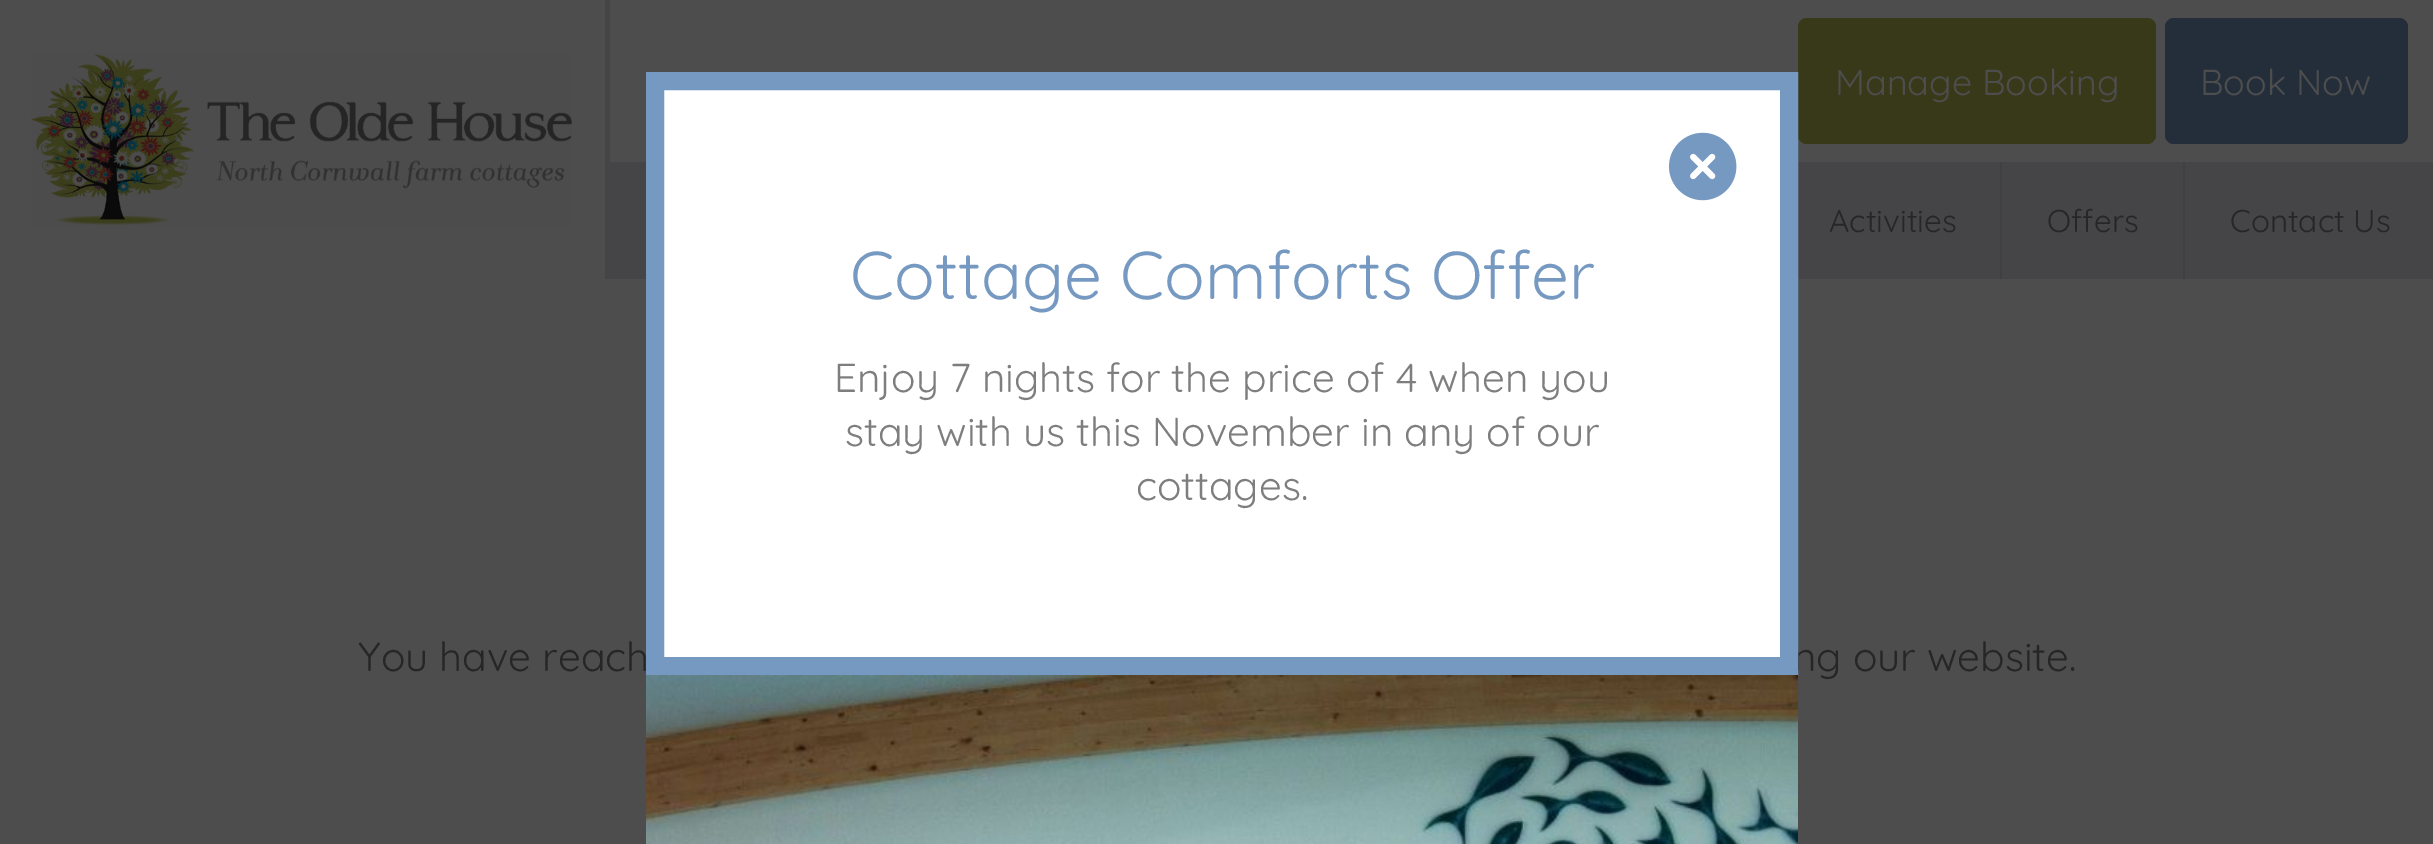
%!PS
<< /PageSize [2433 844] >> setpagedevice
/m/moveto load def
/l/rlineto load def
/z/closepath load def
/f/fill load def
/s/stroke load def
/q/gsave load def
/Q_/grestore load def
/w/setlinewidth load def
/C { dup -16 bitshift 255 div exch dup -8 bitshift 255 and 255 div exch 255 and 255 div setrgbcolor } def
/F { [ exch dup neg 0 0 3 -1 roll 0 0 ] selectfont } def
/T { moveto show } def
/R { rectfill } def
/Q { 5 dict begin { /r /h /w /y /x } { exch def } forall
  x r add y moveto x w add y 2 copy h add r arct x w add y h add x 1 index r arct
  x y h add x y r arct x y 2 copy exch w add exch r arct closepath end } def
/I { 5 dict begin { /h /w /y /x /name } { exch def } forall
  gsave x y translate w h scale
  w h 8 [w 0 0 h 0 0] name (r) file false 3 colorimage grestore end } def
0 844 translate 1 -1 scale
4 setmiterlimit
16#4D4D4D C
0 0 2433 844 R
16#454547 C
605 0 5 279 R
(1.rgb) 31 52 541 174 I
16#373918 C
1798 18 358 126 9 Q f
/Quicksand-Regular 36 F
16#4D4D4D C
(Manage Booking) 1835 95 T
16#232E3A C
2165 18 243 126 9 Q f
16#4D4D4D C
(Book Now) 2200 95 T
16#454547 C
610 162 1823 117 R
16#3F4042 C
2000 162 2 117 R
/Quicksand-Regular 31.5 F
16#262626 C
(Activities) 1829 232 T
16#3F4042 C
2183 162 2 117 R
16#262626 C
(Offers) 2047 232 T
(Contact Us) 2230 232 T
/Quicksand-Regular 40.5 F
(You have reach) 358 671 T
(ng our website.) 1793 671 T
16#FFFFFF C
655 81 m 1134 0 l 0 585 l -1134 0 l z q f Q_
16#7699C1 C
18 w
s
(2.rgb) 1668 132 69 69 I
/Quicksand-Regular 67.5 F
(Cottage Comforts Offer) 850 299 T
/Quicksand-Regular 40.5 F
16#7E7E7E C
(Enjoy 7 nights for the price of 4 when you) 834 392 T
(stay with us this November in any of our) 845 446 T
(cottages.) 1136 500 T
(3.rgb) 646 675 1152 169 I
showpage
